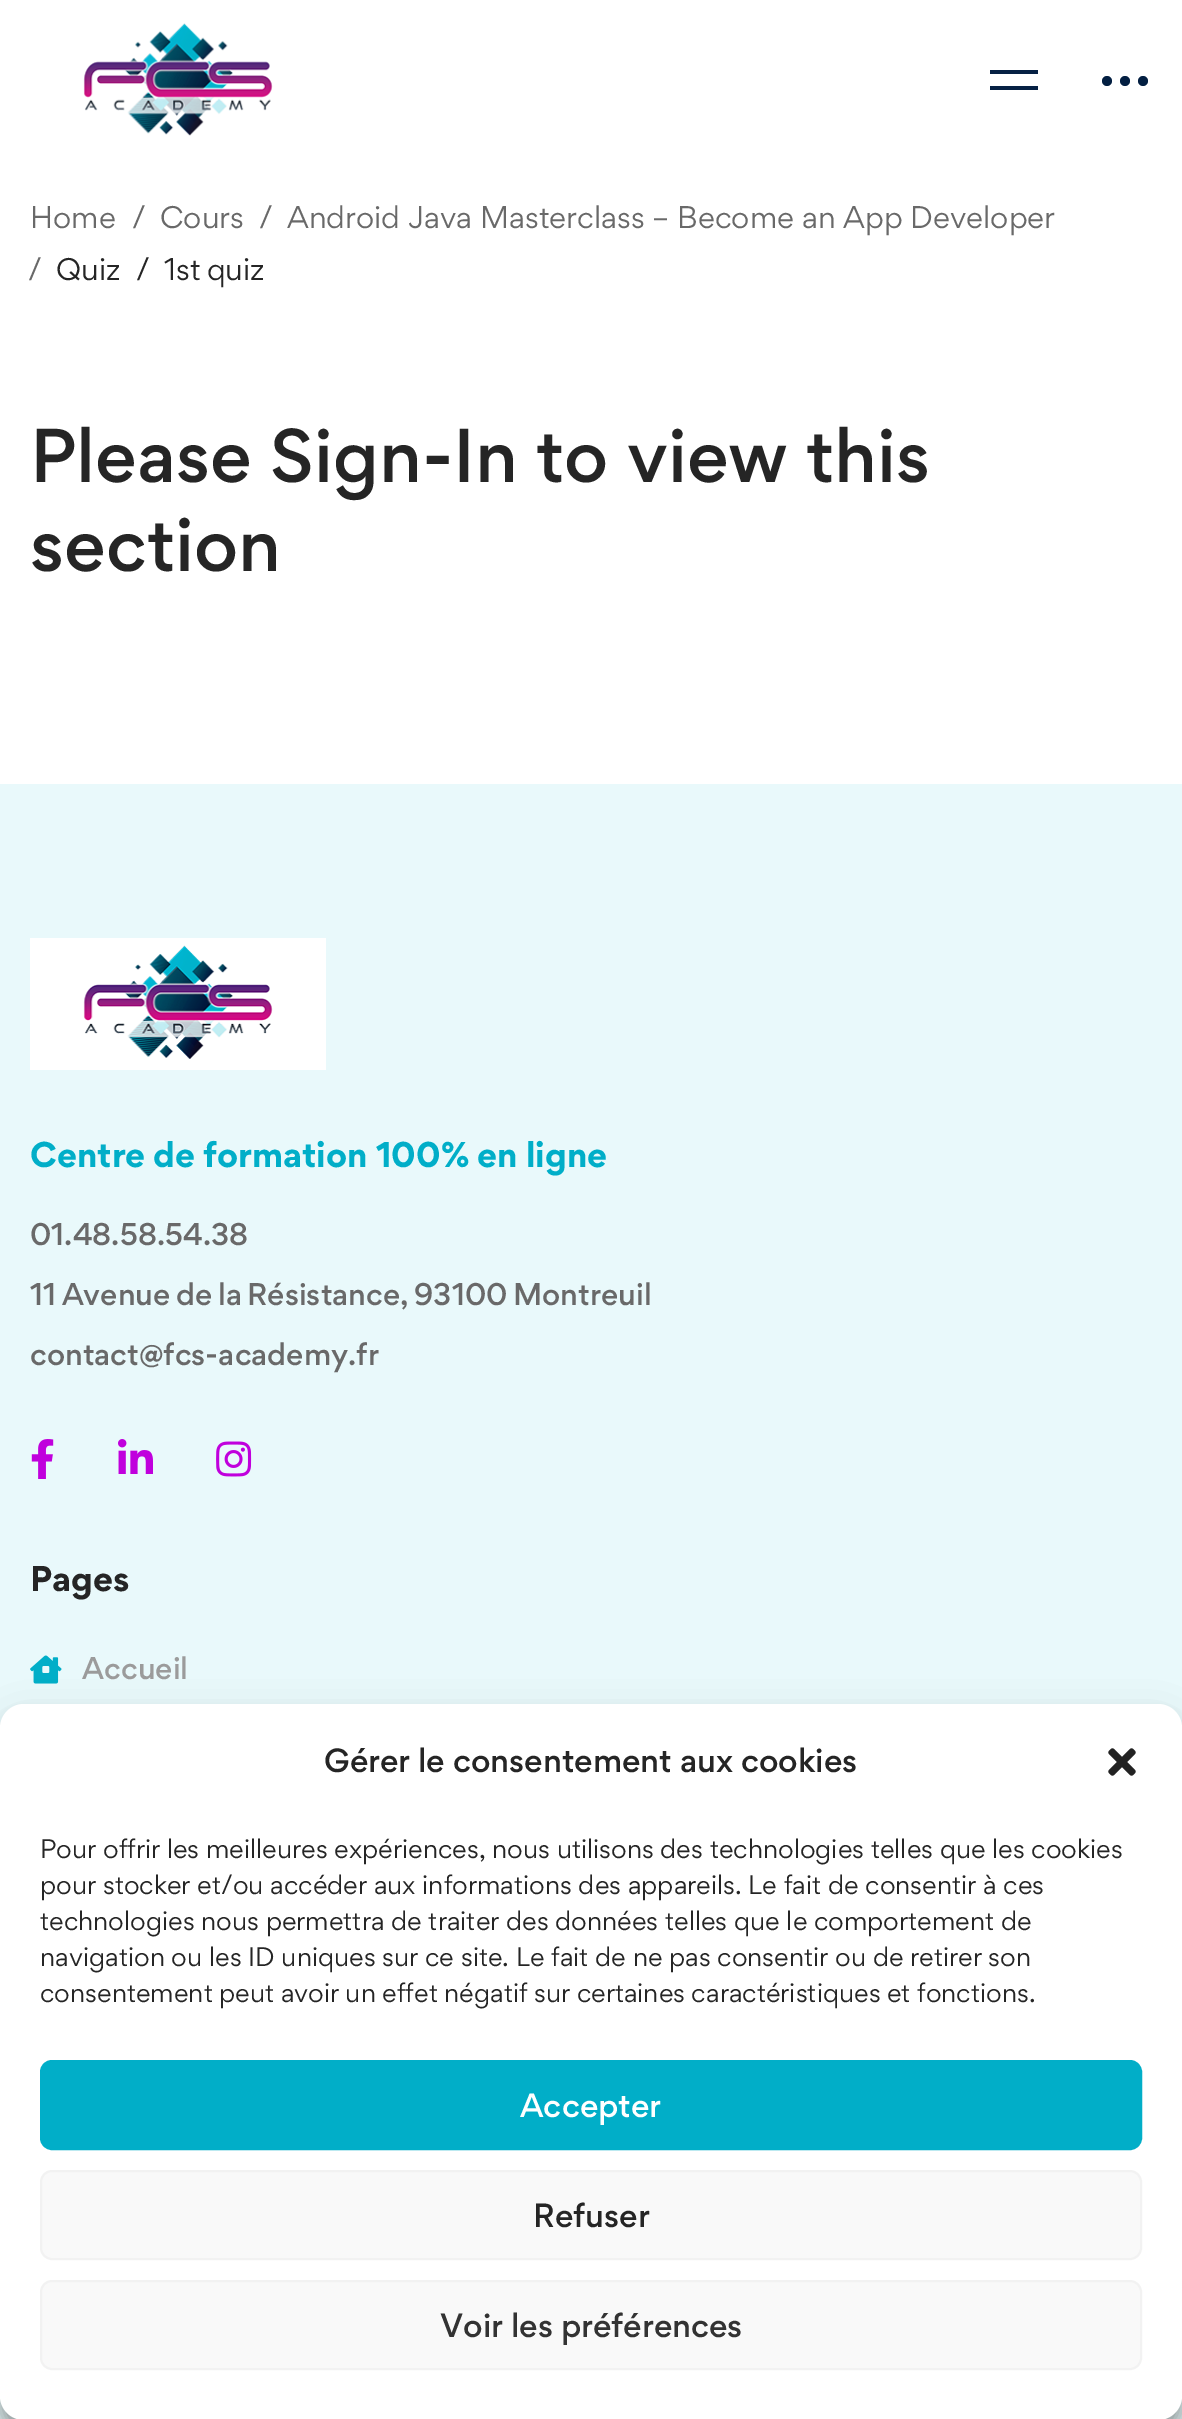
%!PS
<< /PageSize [1182 2419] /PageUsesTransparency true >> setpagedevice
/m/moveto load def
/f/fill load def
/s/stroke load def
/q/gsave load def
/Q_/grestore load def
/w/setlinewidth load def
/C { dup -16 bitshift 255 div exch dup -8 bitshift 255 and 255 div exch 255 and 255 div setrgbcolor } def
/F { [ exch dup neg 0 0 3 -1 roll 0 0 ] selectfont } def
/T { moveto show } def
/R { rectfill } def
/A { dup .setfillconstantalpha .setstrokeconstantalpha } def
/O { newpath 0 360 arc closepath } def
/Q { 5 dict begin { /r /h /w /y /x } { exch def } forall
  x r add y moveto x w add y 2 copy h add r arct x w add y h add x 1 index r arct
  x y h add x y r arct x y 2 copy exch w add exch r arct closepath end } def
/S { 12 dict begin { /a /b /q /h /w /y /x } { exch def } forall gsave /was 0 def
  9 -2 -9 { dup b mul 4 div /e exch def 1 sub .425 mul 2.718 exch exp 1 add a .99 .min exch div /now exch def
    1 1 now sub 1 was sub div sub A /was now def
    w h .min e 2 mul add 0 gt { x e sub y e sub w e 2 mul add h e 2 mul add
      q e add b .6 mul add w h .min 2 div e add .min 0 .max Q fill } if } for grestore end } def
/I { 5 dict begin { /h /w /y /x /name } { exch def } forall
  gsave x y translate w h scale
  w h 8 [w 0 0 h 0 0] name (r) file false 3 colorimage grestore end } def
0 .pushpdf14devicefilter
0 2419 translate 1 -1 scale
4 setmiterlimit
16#FFFFFF C
0 0 1182 2419 R
(1.rgb) 83 23 190 113 I
16#062144 C
990 70 48 4 R
990 86 48 4 R
16#031F42 C
1107 81 5 O f
1125 81 5 O f
1143 81 5 O f
/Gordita-Regular 28 F
16#696969 C
(Home) 30 228 T
(/) 132 228 T
(Cours) 160 228 T
(/) 259 228 T
(Android Java Masterclass – Become an App Developer) 287 228 T
(/) 28 280 T
16#252525 C
(Quiz) 56 280 T
(/) 136 280 T
164 280 m -1.75 0 32 (1st quiz) widthshow
/Gordita-Medium 68 F
(Please Sign-In to view this) 30 482 T
(section) 30 571 T
16#E9F9FB C
0 784 1182 1635 R
(2.rgb) 30 938 296 132 I
/Gordita-Bold 32 F
16#01AEC8 C
(Centre de formation 100% en ligne) 30 1167 T
/Gordita-Medium 28 F
16#696969 C
(01.48.58.54.38) 30 1245 T
30 1305 m -1.75 0 32 (11 Avenue de la Résistance, 93100 Montreuil) widthshow
(contact@fcs-academy.fr) 30 1365 T
(3.rgb) 31 1439 23 40 I
(4.rgb) 118 1439 35 35 I
(5.rgb) 216 1441 36 36 I
/Gordita-Bold 32 F
16#252525 C
(Pages) 30 1591 T
(6.rgb) 30 1655 32 29 I
/Gordita-Medium 28 F
16#9B9B9B C
(Accueil) 82 1679 T
16#000000 C
0 1716 1182 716 24 6 .23 S
0 1724 1182 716 24 20 .19 S
16#FFFFFF C
0 1704 1182 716 24 Q f
/Gordita-Medium 30 F
16#252525 C
(Gérer le consentement aux cookies) 324 1772 T
(7.rgb) 1108 1748 28 28 I
/Gordita-Regular 24 F
(Pour offrir les meilleures expériences, nous utilisons des technologies telles que les cookies) 40 1858 T
(pour stocker et/ou accéder aux informations des appareils. Le fait de consentir à ces) 40 1894 T
(technologies nous permettra de traiter des données telles que le comportement de) 40 1930 T
(navigation ou les ID uniques sur ce site. Le fait de ne pas consentir ou de retirer son) 40 1966 T
40 2002 m -.25 0 32 (consentement peut avoir un effet négatif sur certaines caractéristiques et fonctions.) widthshow
16#01AEC8 C
41 2061 1100 88 11 Q q f Q_
2 w
s
/Gordita-Medium 30 F
16#FFFFFF C
(Accepter) 520 2117 T
16#F9F9F9 C
41 2171 1100 88 11 Q q f Q_
16#F2F2F2 C
s
16#252525 C
(Refuser) 533 2227 T
16#F9F9F9 C
41 2281 1100 88 11 Q q f Q_
16#F2F2F2 C
s
16#333333 C
(Voir les préférences) 440 2337 T
.poppdf14devicefilter showpage
